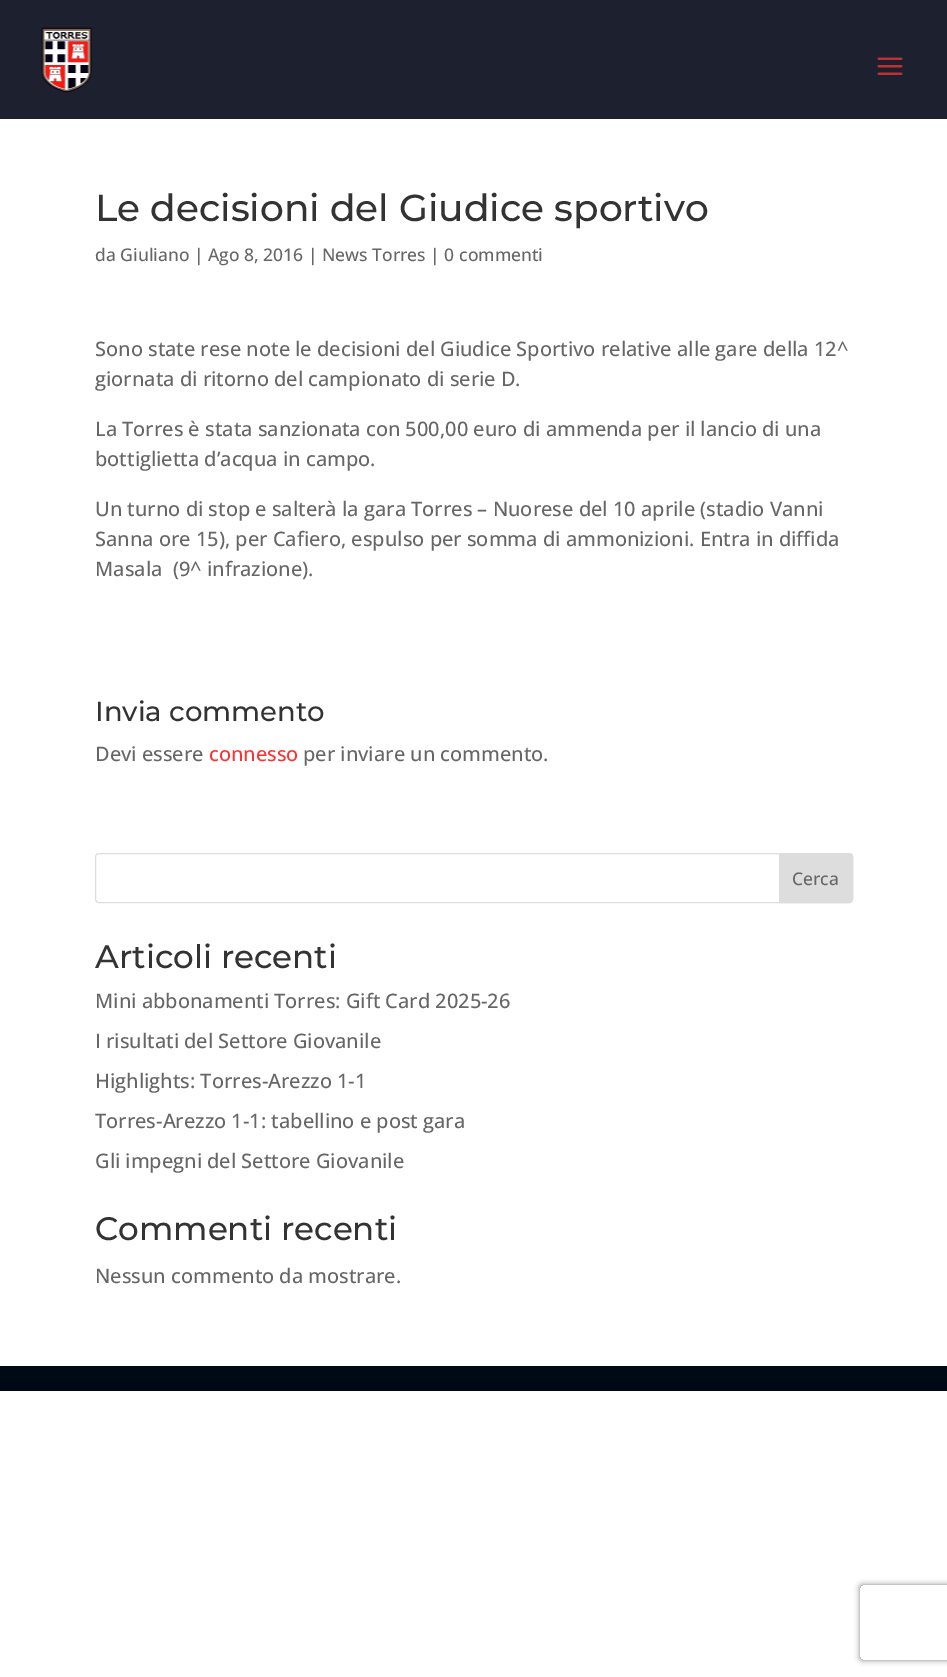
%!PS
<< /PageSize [947 1677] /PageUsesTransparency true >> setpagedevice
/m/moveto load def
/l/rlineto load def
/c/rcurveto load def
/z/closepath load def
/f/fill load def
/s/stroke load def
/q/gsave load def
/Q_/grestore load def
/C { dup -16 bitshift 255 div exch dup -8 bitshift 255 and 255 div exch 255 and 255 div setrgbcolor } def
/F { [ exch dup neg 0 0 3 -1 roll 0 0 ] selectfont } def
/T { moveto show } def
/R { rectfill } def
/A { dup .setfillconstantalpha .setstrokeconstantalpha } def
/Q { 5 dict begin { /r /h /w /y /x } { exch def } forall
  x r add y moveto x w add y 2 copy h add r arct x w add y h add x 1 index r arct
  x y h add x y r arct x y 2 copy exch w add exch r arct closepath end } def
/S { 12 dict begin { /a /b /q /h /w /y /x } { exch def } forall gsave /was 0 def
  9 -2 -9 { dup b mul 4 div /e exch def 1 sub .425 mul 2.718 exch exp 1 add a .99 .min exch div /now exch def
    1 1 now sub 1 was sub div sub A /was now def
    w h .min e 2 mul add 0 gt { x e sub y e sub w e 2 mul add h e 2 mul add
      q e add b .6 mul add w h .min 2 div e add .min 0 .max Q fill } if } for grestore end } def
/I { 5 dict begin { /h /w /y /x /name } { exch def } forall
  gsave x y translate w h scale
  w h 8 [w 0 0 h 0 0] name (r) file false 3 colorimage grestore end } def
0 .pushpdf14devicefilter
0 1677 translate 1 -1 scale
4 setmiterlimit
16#FFFFFF C
0 0 947 1677 R
16#1D212F C
0 0 947 119 R
(1.rgb) 41 27 51 66 I
(2.rgb) 877 57 26 18 I
/Montserrat-Thin 37.5 F
16#333333 C
(Le decisioni del Giudice sportivo) 95 221 T
/OpenSans-Medium 17.5 F
16#666666 C
(da Giuliano | Ago 8, 2016 | News Torres | 0 commenti) 95 261 T
/OpenSans-Medium 20 F
(Sono state rese note le decisioni del Giudice Sportivo relative alle gare della 12^) 95 356 T
(giornata di ritorno del campionato di serie D.) 95 386 T
(La Torres è stata sanzionata con 500,00 euro di ammenda per il lancio di una) 95 436 T
(bottiglietta d’acqua in campo.) 95 466 T
(Un turno di stop e salterà la gara Torres – Nuorese del 10 aprile \(stadio Vanni) 95 516 T
(Sanna ore 15\), per Cafiero, espulso per somma di ammonizioni. Entra in diffida) 95 546 T
(Masala  \(9^ infrazione\).) 95 576 T
/Montserrat-Thin 27.5 F
16#333333 C
(Invia commento) 95 721 T
/OpenSans-Medium 20 F
16#666666 C
(Devi essere) 95 761 T
16#FF3030 C
(connesso) 209 761 T
16#666666 C
(per inviare un commento.) 303 761 T
16#DDDDDD C
95.5 853.5 757 49 3.5 Q s
779.5 853.5 m 69.5 0 l 2 0 3.5 1.5 3.5 3.5 c 0 42 l 0 2 -1.5 3.5 -3.5 3.5 c -69.5 0 l z q f Q_
s
/OpenSans-Medium 17.5 F
16#666666 C
(Cerca) 792 885 T
/Montserrat-Thin 32.5 F
16#333333 C
(Articoli recenti) 95 968 T
/OpenSans-Medium 20 F
16#666666 C
(Mini abbonamenti Torres: Gift Card 2025-26) 95 1008 T
(I risultati del Settore Giovanile) 95 1048 T
(Highlights: Torres-Arezzo 1-1) 95 1088 T
(Torres-Arezzo 1-1: tabellino e post gara) 95 1128 T
(Gli impegni del Settore Giovanile) 95 1168 T
/Montserrat-Thin 32.5 F
16#333333 C
(Commenti recenti) 95 1240 T
/OpenSans-Medium 20 F
16#666666 C
(Nessun commento da mostrare.) 95 1283 T
16#000916 C
0 1366 947 25 R
q
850 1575 m 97 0 l 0 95 l -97 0 l z 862.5 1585 m 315 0 l 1.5 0 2.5 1 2.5 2.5 c 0 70 l 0 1.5 -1 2.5 -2.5 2.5 c -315 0 l -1.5 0 -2.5 -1 -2.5 -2.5 c 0 -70 l 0 -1.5 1 -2.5 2.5 -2.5 c z eoclip newpath
16#808080 C
860 1585 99 75 2.5 3 1 S
Q_
.poppdf14devicefilter showpage
